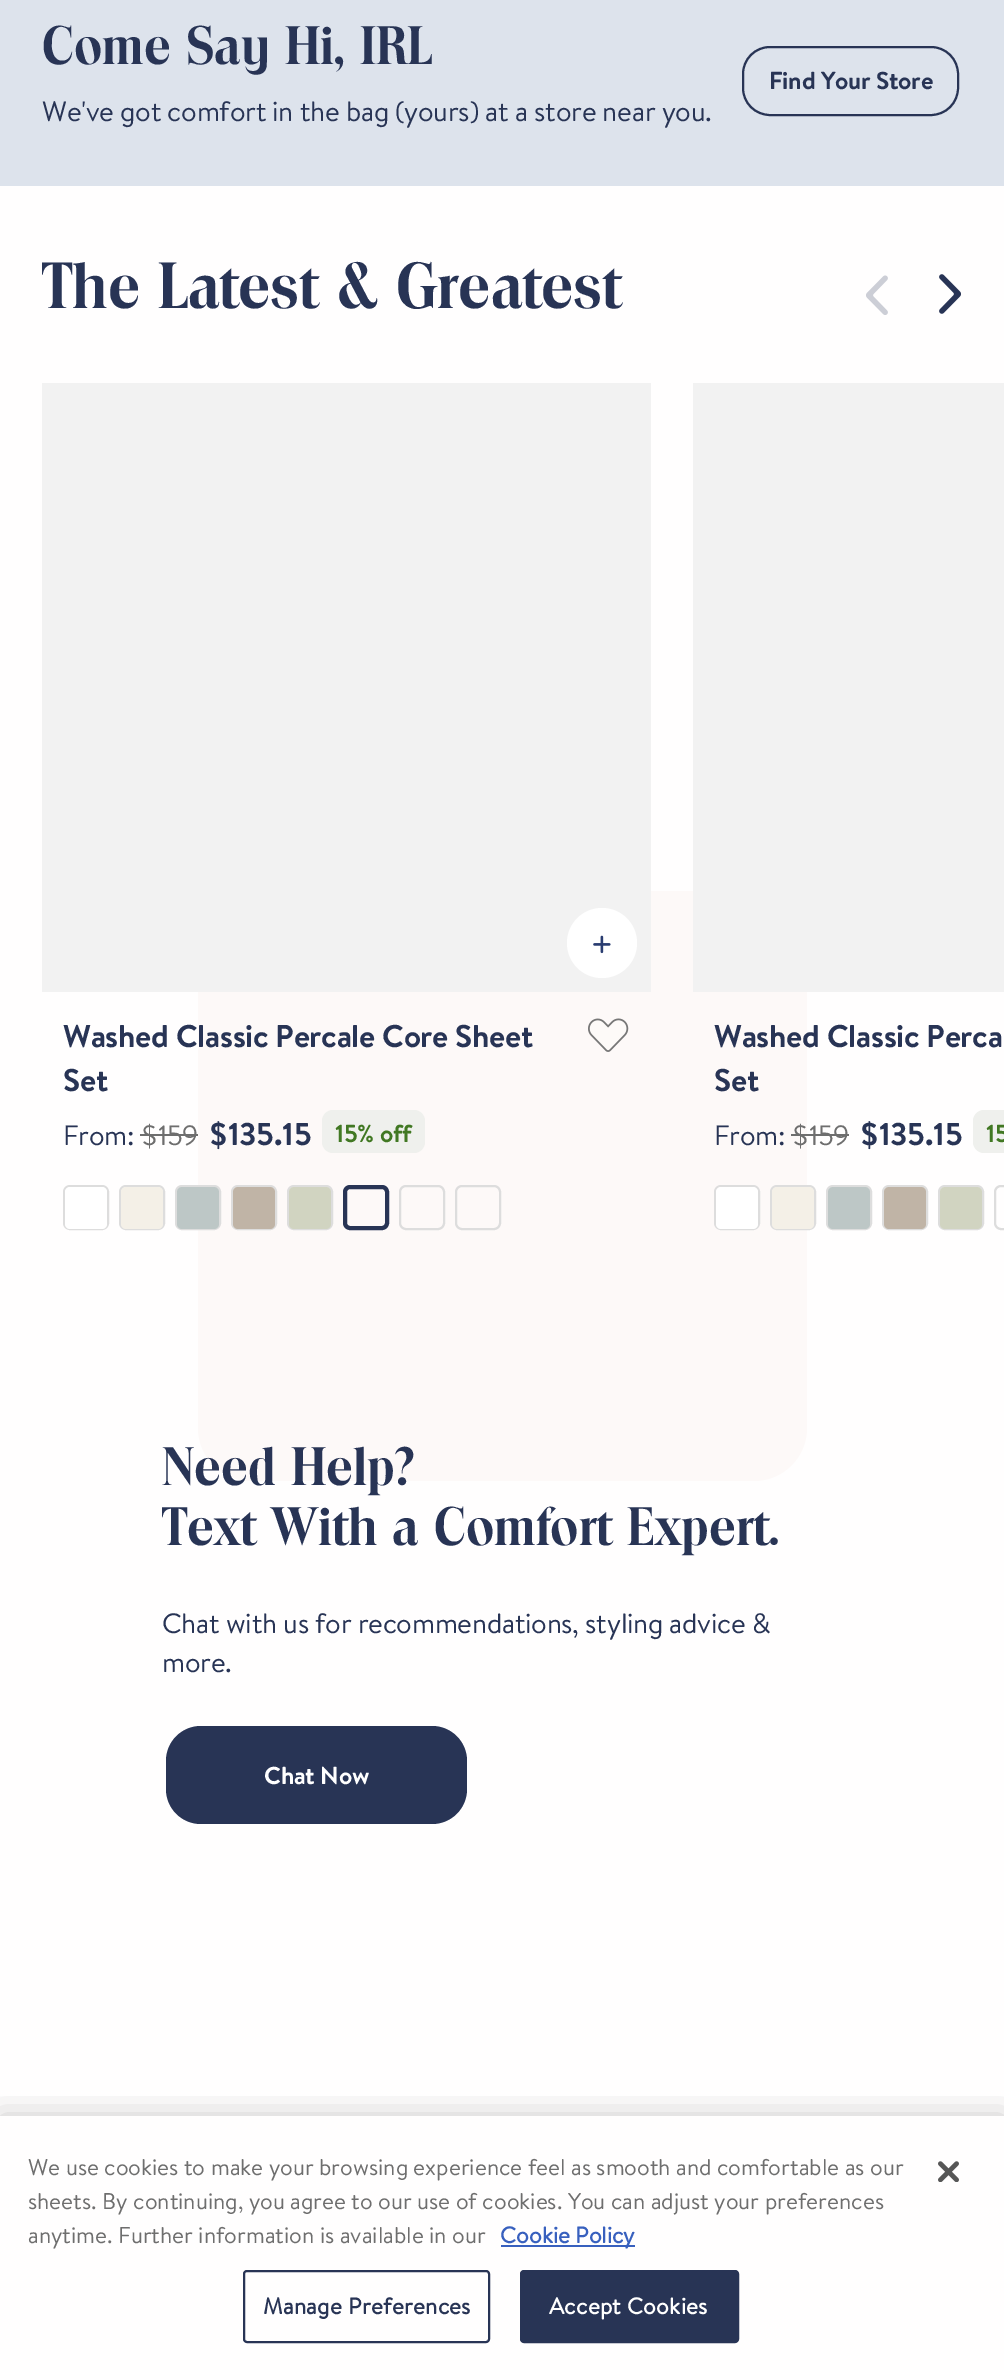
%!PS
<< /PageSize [1004 2370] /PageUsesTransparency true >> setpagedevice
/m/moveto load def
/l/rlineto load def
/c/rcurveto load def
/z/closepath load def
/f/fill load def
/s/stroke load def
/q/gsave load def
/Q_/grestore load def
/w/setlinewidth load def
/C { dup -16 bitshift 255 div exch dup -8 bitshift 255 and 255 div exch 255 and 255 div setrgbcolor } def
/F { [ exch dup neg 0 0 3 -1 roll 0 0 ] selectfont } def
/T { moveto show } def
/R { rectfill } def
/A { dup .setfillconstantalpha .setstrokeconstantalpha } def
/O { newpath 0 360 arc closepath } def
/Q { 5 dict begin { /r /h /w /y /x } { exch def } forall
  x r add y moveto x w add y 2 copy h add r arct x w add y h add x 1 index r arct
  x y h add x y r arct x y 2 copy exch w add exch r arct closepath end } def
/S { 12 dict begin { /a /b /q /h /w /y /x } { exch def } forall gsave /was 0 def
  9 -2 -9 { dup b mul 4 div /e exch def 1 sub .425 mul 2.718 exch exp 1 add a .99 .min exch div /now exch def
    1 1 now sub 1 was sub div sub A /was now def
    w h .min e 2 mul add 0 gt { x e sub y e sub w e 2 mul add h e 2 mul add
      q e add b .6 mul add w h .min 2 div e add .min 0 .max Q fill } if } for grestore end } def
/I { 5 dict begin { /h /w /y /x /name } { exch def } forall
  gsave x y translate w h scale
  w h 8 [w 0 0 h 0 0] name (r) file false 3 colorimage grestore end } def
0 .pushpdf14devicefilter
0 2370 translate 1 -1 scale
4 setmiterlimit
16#FFFEFE C
0 0 1004 2370 R
16#DDE3EC C
0 0 1004 186 R
/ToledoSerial-Bold 52.5 F
16#283455 C
(Come Say Hi, IRL) 42 64 T
/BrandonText-Regular 28 F
42 121 m -.28 0 (We've got comfort in the bag \(yours\) at a store near you.) ashow
2 w
743 47 215 68 27 Q s
/BrandonText-Bold 24.5 F
769 89 m -.25 0 (Find Your Store) ashow
/ToledoSerial-Bold 63 F
(The Latest & Greatest) 42 308 T
(1.rgb) 866 275 22 40 I
(2.rgb) 939 274 22 40 I
16#FDF9F8 C
198 891 609 590 53 Q f
16#F2F2F2 C
42 383 609 609 R
16#FFFFFF C
602 943 35 O f
(3.rgb) 593 935 18 19 I
/BrandonText-Bold 31.5 F
16#283455 C
63 1047 m -.3 0 (Washed Classic Percale Core Sheet) ashow
63 1091 m -.3 0 (Set) ashow
(4.rgb) 588 1018 41 34 I
/BrandonText-Regular 28 F
63 1145 m -.28 0 (From:) ashow
16#6E6E6E C
141 1145 m -.28 0 ($159) ashow
140 1134 58 2 R
/BrandonText-Bold 31.5 F
16#283455 C
209 1145 m -.28 0 ($135.15) ashow
16#EFF0ED C
322 1110 103 43 11 Q f
/BrandonText-Bold 24.5 F
16#417823 C
335 1142 m -.25 0 (15% off) ashow
16#DDDDDD C
64 1186 44 43 6 Q s
16#FFFFFF C
65 1187 42 42 5 Q f
16#DDDDDD C
120 1186 44 43 6 Q s
16#F4F0E7 C
121 1187 42 42 5 Q f
16#DDDDDD C
176 1186 44 43 6 Q s
16#BDC7C6 C
177 1187 42 42 5 Q f
16#DDDDDD C
232 1186 44 43 6 Q s
16#C0B4A6 C
233 1187 42 42 5 Q f
16#DDDDDD C
288 1186 44 43 6 Q s
16#D1D4C1 C
289 1187 42 42 5 Q f
16#283455 C
4 w
345 1187 42 41 5 Q s
16#DDDDDD C
2 w
400 1186 44 43 6 Q s
456 1186 44 43 6 Q s
16#F2F2F2 C
693 383 311 609 R
/BrandonText-Bold 31.5 F
16#283455 C
714 1047 m -.3 0 (Washed Classic Perca) ashow
714 1091 m -.3 0 (Set) ashow
/BrandonText-Regular 28 F
714 1145 m -.28 0 (From:) ashow
16#6E6E6E C
792 1145 m -.28 0 ($159) ashow
791 1134 58 2 R
/BrandonText-Bold 31.5 F
16#283455 C
860 1145 m -.28 0 ($135.15) ashow
16#EFF0ED C
984 1110 m 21 0 l 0 43 l -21 0 l -6 0 -11 -5 -11 -11 c 0 -21 l 0 -6 5 -11 11 -11 c z f
/BrandonText-Bold 24.5 F
16#417823 C
986 1142 m -.25 0 (15) ashow
16#DDDDDD C
715 1186 44 43 6 Q s
16#FFFFFF C
716 1187 42 42 5 Q f
16#DDDDDD C
771 1186 44 43 6 Q s
16#F4F0E7 C
772 1187 42 42 5 Q f
16#DDDDDD C
827 1186 44 43 6 Q s
16#BDC7C6 C
828 1187 42 42 5 Q f
16#DDDDDD C
883 1186 44 43 6 Q s
16#C0B4A6 C
884 1187 42 42 5 Q f
16#DDDDDD C
939 1186 44 43 6 Q s
16#D1D4C1 C
940 1187 42 42 5 Q f
16#DDDDDD C
995 1186 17 43 6 Q s
/ToledoSerial-Bold 52.5 F
16#283455 C
(Need Help?) 162 1485 T
(Text With a Comfort Expert.) 162 1545 T
/BrandonText-Regular 28 F
162 1633 m -.28 0 (Chat with us for recommendations, styling advice &) ashow
162 1672 m -.28 0 (more.) ashow
166 1726 301 98 35 Q f
/BrandonText-Bold 24.5 F
16#FFFFFF C
264 1784 m -.25 0 (Chat Now) ashow
q
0 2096 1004 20 rectclip
16#000000 C
0 2116 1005 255 0 16 .2 S
Q_
/BrandonText-Regular 22.75 F
16#6E6E6E C
(We use cookies to make your browsing experience feel as smooth and comfortable as our) 28 2175 T
(sheets. By continuing, you agree to our use of cookies. You can adjust your preferences) 28 2209 T
(anytime. Further information is available in our) 28 2243 T
16#3860BE C
501 2245 134 2 R
/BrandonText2-Bold 22.75 F
(Cookie Policy) 500 2243 T
16#283455 C
244 2271 245 71 3 Q s
263 2314 m .25 0 (Manage Preferences) ashow
521 2271 217 71 3 Q q f Q_
s
16#FFFFFF C
549 2314 m .25 0 (Accept Cookies) ashow
(5.rgb) 938 2161 21 21 I
.poppdf14devicefilter showpage
